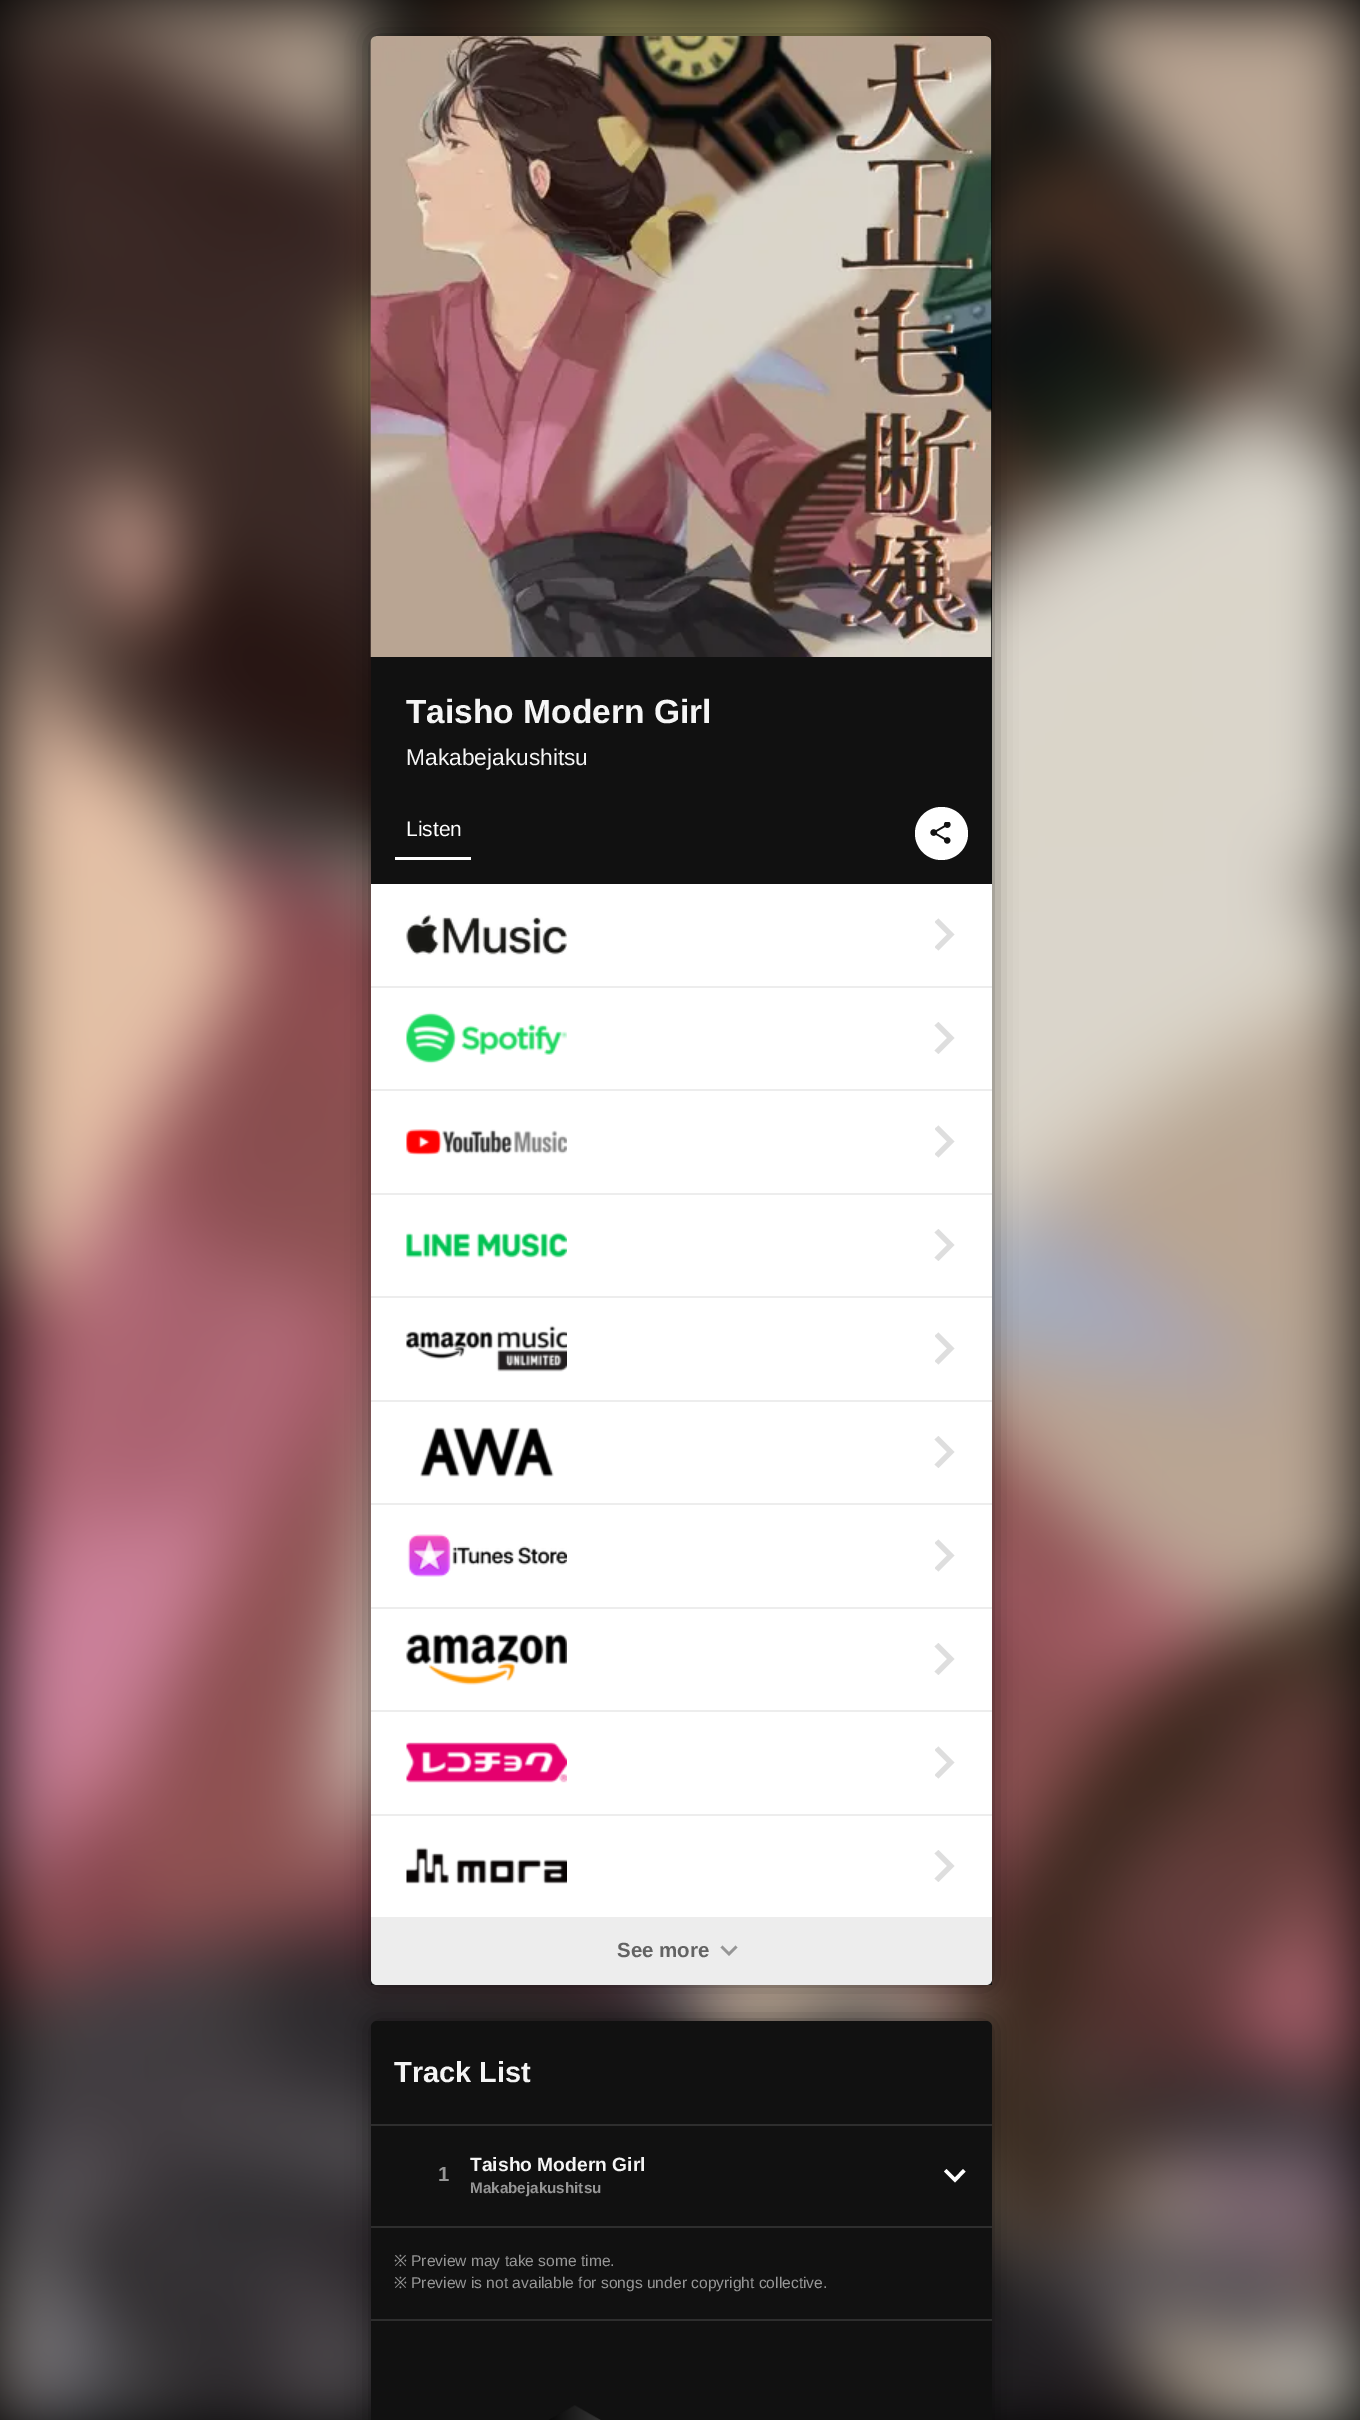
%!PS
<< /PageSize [1360 2420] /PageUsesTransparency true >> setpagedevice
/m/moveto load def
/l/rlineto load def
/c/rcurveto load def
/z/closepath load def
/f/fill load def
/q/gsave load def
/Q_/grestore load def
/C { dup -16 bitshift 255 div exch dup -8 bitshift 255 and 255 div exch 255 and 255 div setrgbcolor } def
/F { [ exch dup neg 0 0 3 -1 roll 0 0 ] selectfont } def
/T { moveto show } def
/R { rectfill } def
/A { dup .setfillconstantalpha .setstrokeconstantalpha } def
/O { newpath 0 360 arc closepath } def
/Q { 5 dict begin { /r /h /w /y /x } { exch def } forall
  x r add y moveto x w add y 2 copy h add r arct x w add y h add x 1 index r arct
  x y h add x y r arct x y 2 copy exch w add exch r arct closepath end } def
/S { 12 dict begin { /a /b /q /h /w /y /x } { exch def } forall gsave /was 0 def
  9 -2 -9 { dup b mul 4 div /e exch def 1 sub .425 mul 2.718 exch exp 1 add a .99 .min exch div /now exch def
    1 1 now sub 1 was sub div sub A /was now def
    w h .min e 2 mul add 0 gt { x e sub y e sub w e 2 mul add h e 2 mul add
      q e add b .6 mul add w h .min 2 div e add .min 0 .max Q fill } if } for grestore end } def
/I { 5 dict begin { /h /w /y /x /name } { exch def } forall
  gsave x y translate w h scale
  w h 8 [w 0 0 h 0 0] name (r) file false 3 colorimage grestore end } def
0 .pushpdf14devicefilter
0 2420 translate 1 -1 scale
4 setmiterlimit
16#000000 C
0 0 1360 2420 R
(1.rgb) 0 0 1360 2420 I
371 36 621 1949 6 12 .47 S
377 36 m 609 0 l 3.5 0 6 2.5 6 6 c 0 615 l -621 0 l 0 -615 l 0 -3.5 2.5 -6 6 -6 c z f
(2.rgb) 370 36 622 621 I
16#111111 C
371 657 621 1328 R
/LiberationSans-Bold 33.5 F
16#F5F5F5 C
(Taisho Modern Girl) 406 723 T
/LiberationSans-Regular 22.75 F
(Makabejakushitsu) 406 765 T
/LiberationSans-Regular 21 F
16#FFFFFF C
(Listen) 406 836 T
395 857 76 3 R
941.5 833.5 26.5 O f
(3.rgb) 930 822 21 22 I
371 884 621 1033 R
(4.rgb) 406 914 161 41 I
q
935 905 21 60 rectclip
16#DEDEDE C
934.5 947 m 12.5 -12.5 l -12.5 -12.5 l 4 -3.5 l 16 16 l -16 16 l z f
Q_
16#EDEDED C
371 986 621 2 R
(5.rgb) 406 1012 161 52 I
16#DEDEDE C
934.5 1050.5 m 12.5 -12.5 l -12.5 -12.5 l 4 -3.5 l 16 16 l -16 16 l z f
16#EDEDED C
371 1089 621 2 R
(6.rgb) 406 1129 161 26 I
q
935 1112 21 60 rectclip
16#DEDEDE C
934.5 1154 m 12.5 -12.5 l -12.5 -12.5 l 4 -3.5 l 16 16 l -16 16 l z f
Q_
371 1193 621 2 R
(7.rgb) 406 1232 161 26 I
16#DEDEDE C
934.5 1257.5 m 12.5 -12.5 l -12.5 -12.5 l 4 -3.5 l 16 16 l -16 16 l z f
16#EDEDED C
371 1296 621 2 R
(8.rgb) 406 1325 161 47 I
q
935 1319 21 60 rectclip
16#DEDEDE C
934.5 1361 m 12.5 -12.5 l -12.5 -12.5 l 4 -3.5 l 16 16 l -16 16 l z f
Q_
371 1400 621 2 R
(9.rgb) 420 1427 134 50 I
16#DEDEDE C
934.5 1464.5 m 12.5 -12.5 l -12.5 -12.5 l 4 -3.5 l 16 16 l -16 16 l z f
16#EDEDED C
371 1503 621 2 R
(10.rgb) 407 1534 160 43 I
q
935 1526 21 60 rectclip
16#DEDEDE C
934.5 1568 m 12.5 -12.5 l -12.5 -12.5 l 4 -3.5 l 16 16 l -16 16 l z f
Q_
371 1607 621 2 R
(11.rgb) 406 1633 161 52 I
16#DEDEDE C
934.5 1671.5 m 12.5 -12.5 l -12.5 -12.5 l 4 -3.5 l 16 16 l -16 16 l z f
16#EDEDED C
371 1710 621 2 R
(12.rgb) 406 1742 161 41 I
q
935 1733 21 60 rectclip
16#DEDEDE C
934.5 1775 m 12.5 -12.5 l -12.5 -12.5 l 4 -3.5 l 16 16 l -16 16 l z f
Q_
371 1814 621 2 R
(13.rgb) 406 1847 161 37 I
16#DEDEDE C
934.5 1878.5 m 12.5 -12.5 l -12.5 -12.5 l 4 -3.5 l 16 16 l -16 16 l z f
16#000000 C
371 2021 621 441 6 12 .47 S
16#EDEDED C
371 1917 m 621 0 l 0 62 l 0 3.5 -2.5 6 -6 6 c -609 0 l -3.5 0 -6 -2.5 -6 -6 c z f
/LiberationSans-Bold 20.5 F
16#636363 C
(See more) 617 1957 T
16#969696 C
722.5 1945.5 m 6.5 6.5 l 6.5 -6.5 l 2 2 l -8.5 8.5 l -8.5 -8.5 l z f
16#111111 C
371 2021 621 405 6 Q f
16#2E2E2E C
371 2124 621 2 R
/LiberationSans-Bold 29 F
16#F5F5F5 C
(Track List) 394 2082 T
16#2E2E2E C
371 2319 621 2 R
371 2226 621 2 R
/LiberationSans-Bold 20.5 F
16#969696 C
(1) 438 2181 T
/LiberationSans-Bold 19.25 F
16#F5F5F5 C
(Taisho Modern Girl) 470 2171 T
/LiberationSans-Bold 15.25 F
16#969696 C
(Makabejakushitsu) 470 2193 T
16#FFFFFF C
963 2169 m -8 8.5 l -8.5 -8.5 l -2.5 2.5 l 11 11 l 10.5 -11 l z f
/NotoSans-Regular 15.6 F
16#969696 C
(※) 394 2266 T
/LiberationSans-Regular 15.6 F
(Preview may take some time.) 411 2266 T
/NotoSans-Regular 15.6 F
(※) 394 2288 T
/LiberationSans-Regular 15.6 F
(Preview is not available for songs under copyright collective.) 411 2288 T
(14.rgb) 549 2405 52 15 I
.poppdf14devicefilter showpage
